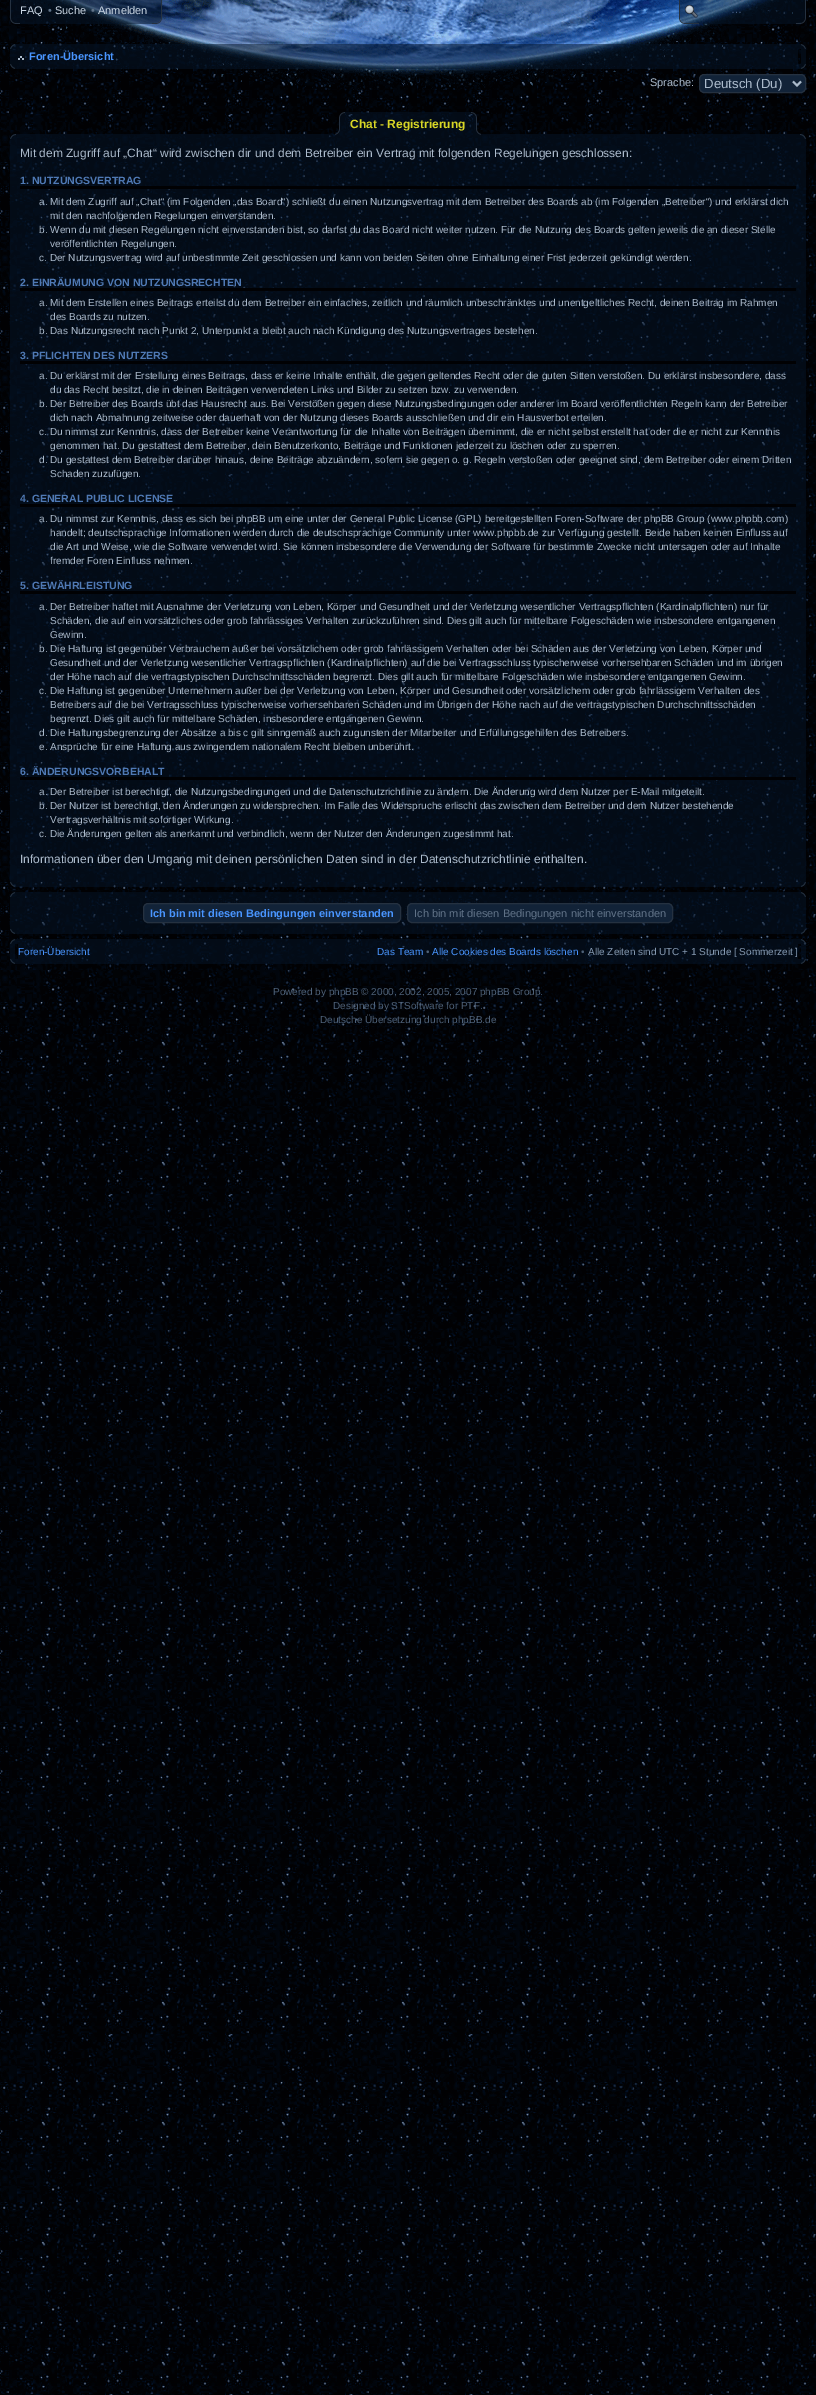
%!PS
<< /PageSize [816 2395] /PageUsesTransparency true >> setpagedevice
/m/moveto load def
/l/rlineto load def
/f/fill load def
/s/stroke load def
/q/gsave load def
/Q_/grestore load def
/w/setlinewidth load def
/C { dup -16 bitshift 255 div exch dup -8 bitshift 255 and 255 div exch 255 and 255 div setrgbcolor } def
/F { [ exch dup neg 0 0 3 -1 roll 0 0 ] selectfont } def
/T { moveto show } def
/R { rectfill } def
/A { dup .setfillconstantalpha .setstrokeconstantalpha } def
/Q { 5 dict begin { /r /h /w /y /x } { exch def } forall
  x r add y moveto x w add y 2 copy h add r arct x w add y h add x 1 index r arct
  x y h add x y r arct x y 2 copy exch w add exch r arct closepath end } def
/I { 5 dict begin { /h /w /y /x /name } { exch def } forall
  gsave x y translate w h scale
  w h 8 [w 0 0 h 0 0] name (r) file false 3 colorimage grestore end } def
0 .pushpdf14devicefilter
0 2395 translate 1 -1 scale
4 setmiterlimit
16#FFFFFF C
0 0 816 2395 R
(1.rgb) 0 1037 816 1358 I
(2.rgb) 0 0 816 1037 I
(3.rgb) 21 0 772 90 I
0.5 A
16#041428 C
20 0 132 24 R
1 A
(4.rgb) 10 0 10 24 I
/LiberationSans-Regular 11 F
16#CBD7E4 C
(FAQ) 20 14 T
16#607287 C
(•) 48 14 T
16#CBD7E4 C
(Suche) 55 14 T
16#607287 C
(•) 91 14 T
16#CBD7E4 C
(Anmelden) 98 14 T
(5.rgb) 152 0 10 24 I
0.5 A
16#041428 C
699 0 97 24 R
1 A
(6.rgb) 679 0 20 24 I
16#4A6283 C
(…) 731 13 T
(7.rgb) 796 0 10 24 I
0.5 A
16#041428 C
15 44 786 5 R
1 A
(8.rgb) 10 44 5 5 I
(9.rgb) 801 44 5 5 I
0.5 A
10 49 5 15 R
801 49 5 15 R
15 49 783 15 R
1 A
(10.rgb) 18 56 6 4 I
/LiberationSans-Bold 11 F
16#4995FF C
(Foren-Übersicht) 29 60 T
0.5 A
16#041428 C
15 64 786 5 R
1 A
(11.rgb) 10 64 5 5 I
(12.rgb) 801 64 5 5 I
/LiberationSans-Regular 11 F
16#ABBACB C
(Sprache:) 650 86 T
16#122338 C
699.5 74.5 106 18 4.5 Q q f Q_
16#253140 C
s
16#ABBACB C
2 w
793 81.5 m 4 4 l 4 -4 l s
/LiberationSans-Regular 13.25 F
(Deutsch \(Du\)) 704 88 T
(13.rgb) 10 134 6 5 I
(14.rgb) 335 112 10 27 I
(15.rgb) 471 112 10 27 I
0.5 A
16#041428 C
345 112 126 27 R
/LiberationSans-Bold 12 F
1 A
16#D8D626 C
(Chat - Registrierung) 350 128 T
0.5 A
16#041428 C
16 134 319 5 R
481 134 319 5 R
1 A
(16.rgb) 800 134 6 5 I
0.5 A
10 139 5 743 R
801 139 5 743 R
15 139 786 743 R
/LiberationSans-Regular 12 F
1 A
16#ABBACB C
(Mit dem Zugriff auf „Chat“ wird zwischen dir und dem Betreiber ein Vertrag mit folgenden Regelungen geschlossen:) 20 157 T
16#010103 C
20 186 776 3 R
/LiberationSans-Bold 10.5 F
16#4F79B4 C
(1. NUTZUNGSVERTRAG) 20 184 T
/LiberationSans-Regular 10 F
16#ABBACB C
(a. Mit dem Zugriff auf „Chat“ \(im Folgenden „das Board“\) schließt du einen Nutzungsvertrag mit dem Betreiber des Boards ab \(im Folgenden „Betreiber“\) und erklärst dich) 39 205 T
(mit den nachfolgenden Regelungen einverstanden.) 50 219 T
(b. Wenn du mit diesen Regelungen nicht einverstanden bist, so darfst du das Board nicht weiter nutzen. Für die Nutzung des Boards gelten jeweils die an dieser Stelle) 39 233 T
(veröffentlichten Regelungen.) 50 247 T
(c. Der Nutzungsvertrag wird auf unbestimmte Zeit geschlossen und kann von beiden Seiten ohne Einhaltung einer Frist jederzeit gekündigt werden.) 39 261 T
16#010103 C
20 288 776 3 R
/LiberationSans-Bold 10.5 F
16#4F79B4 C
(2. EINRÄUMUNG VON NUTZUNGSRECHTEN) 20 286 T
/LiberationSans-Regular 10 F
16#ABBACB C
(a. Mit dem Erstellen eines Beitrags erteilst du dem Betreiber ein einfaches, zeitlich und räumlich unbeschränktes und unentgeltliches Recht, deinen Beitrag im Rahmen) 39 306 T
(des Boards zu nutzen.) 50 320 T
(b. Das Nutzungsrecht nach Punkt 2, Unterpunkt a bleibt auch nach Kündigung des Nutzungsvertrages bestehen.) 39 334 T
16#010103 C
20 361 776 3 R
/LiberationSans-Bold 10.5 F
16#4F79B4 C
(3. PFLICHTEN DES NUTZERS) 20 359 T
/LiberationSans-Regular 10 F
16#ABBACB C
(a. Du erklärst mit der Erstellung eines Beitrags, dass er keine Inhalte enthält, die gegen geltendes Recht oder die guten Sitten verstoßen. Du erklärst insbesondere, dass) 39 379 T
(du das Recht besitzt, die in deinen Beiträgen verwendeten Links und Bilder zu setzen bzw. zu verwenden.) 50 393 T
(b. Der Betreiber des Boards übt das Hausrecht aus. Bei Verstößen gegen diese Nutzungsbedingungen oder anderer im Board veröffentlichten Regeln kann der Betreiber) 39 407 T
(dich nach Abmahnung zeitweise oder dauerhaft von der Nutzung dieses Boards ausschließen und dir ein Hausverbot erteilen.) 50 421 T
(c. Du nimmst zur Kenntnis, dass der Betreiber keine Verantwortung für die Inhalte von Beiträgen übernimmt, die er nicht selbst erstellt hat oder die er nicht zur Kenntnis) 39 435 T
(genommen hat. Du gestattest dem Betreiber, dein Benutzerkonto, Beiträge und Funktionen jederzeit zu löschen oder zu sperren.) 50 449 T
(d. Du gestattest dem Betreiber darüber hinaus, deine Beiträge abzuändern, sofern sie gegen o. g. Regeln verstoßen oder geeignet sind, dem Betreiber oder einem Dritten) 39 463 T
(Schaden zuzufügen.) 50 477 T
16#010103 C
20 504 776 3 R
/LiberationSans-Bold 10.5 F
16#4F79B4 C
(4. GENERAL PUBLIC LICENSE) 20 502 T
/LiberationSans-Regular 10 F
16#ABBACB C
(a. Du nimmst zur Kenntnis, dass es sich bei phpBB um eine unter der General Public License \(GPL\) bereitgestellten Foren-Software der phpBB Group \(www.phpbb.com\)) 39 522 T
(handelt; deutschsprachige Informationen werden durch die deutschsprachige Community unter www.phpbb.de zur Verfügung gestellt. Beide haben keinen Einfluss auf) 50 536 T
(die Art und Weise, wie die Software verwendet wird. Sie können insbesondere die Verwendung der Software für bestimmte Zwecke nicht untersagen oder auf Inhalte) 50 550 T
(fremder Foren Einfluss nehmen.) 50 564 T
16#010103 C
20 591 776 3 R
/LiberationSans-Bold 10.5 F
16#4F79B4 C
(5. GEWÄHRLEISTUNG) 20 589 T
/LiberationSans-Regular 10 F
16#ABBACB C
(a. Der Betreiber haftet mit Ausnahme der Verletzung von Leben, Körper und Gesundheit und der Verletzung wesentlicher Vertragspflichten \(Kardinalpflichten\) nur für) 39 610 T
(Schäden, die auf ein vorsätzliches oder grob fahrlässiges Verhalten zurückzuführen sind. Dies gilt auch für mittelbare Folgeschäden wie insbesondere entgangenen) 50 624 T
(Gewinn.) 50 638 T
(b. Die Haftung ist gegenüber Verbrauchern außer bei vorsätzlichem oder grob fahrlässigem Verhalten oder bei Schäden aus der Verletzung von Leben, Körper und) 39 652 T
(Gesundheit und der Verletzung wesentlicher Vertragspflichten \(Kardinalpflichten\) auf die bei Vertragsschluss typischerweise vorhersehbaren Schäden und im übrigen) 50 666 T
(der Höhe nach auf die vertragstypischen Durchschnittsschäden begrenzt. Dies gilt auch für mittelbare Folgeschäden wie insbesondere entgangenen Gewinn.) 50 680 T
(c. Die Haftung ist gegenüber Unternehmern außer bei der Verletzung von Leben, Körper und Gesundheit oder vorsätzlichem oder grob fahrlässigem Verhalten des) 39 694 T
(Betreibers auf die bei Vertragsschluss typischerweise vorhersehbaren Schäden und im Übrigen der Höhe nach auf die vertragstypischen Durchschnittsschäden) 50 708 T
(begrenzt. Dies gilt auch für mittelbare Schäden, insbesondere entgangenen Gewinn.) 50 722 T
(d. Die Haftungsbegrenzung der Absätze a bis c gilt sinngemäß auch zugunsten der Mitarbeiter und Erfüllungsgehilfen des Betreibers.) 39 736 T
(e. Ansprüche für eine Haftung aus zwingendem nationalem Recht bleiben unberührt.) 39 750 T
16#010103 C
20 777 776 3 R
/LiberationSans-Bold 10.5 F
16#4F79B4 C
(6. ÄNDERUNGSVORBEHALT) 20 775 T
/LiberationSans-Regular 10 F
16#ABBACB C
(a. Der Betreiber ist berechtigt, die Nutzungsbedingungen und die Datenschutzrichtlinie zu ändern. Die Änderung wird dem Nutzer per E-Mail mitgeteilt.) 39 795 T
(b. Der Nutzer ist berechtigt, den Änderungen zu widersprechen. Im Falle des Widerspruchs erlischt das zwischen dem Betreiber und dem Nutzer bestehende) 39 809 T
(Vertragsverhältnis mit sofortiger Wirkung.) 50 823 T
(c. Die Änderungen gelten als anerkannt und verbindlich, wenn der Nutzer den Änderungen zugestimmt hat.) 39 837 T
/LiberationSans-Regular 12 F
(Informationen über den Umgang mit deinen persönlichen Daten sind in der Datenschutzrichtlinie enthalten.) 20 863 T
0.5 A
16#041428 C
15 882 786 5 R
1 A
(17.rgb) 10 882 5 5 I
(18.rgb) 801 882 5 5 I
0.5 A
15 892 786 5 R
1 A
(19.rgb) 10 892 5 5 I
(20.rgb) 801 892 5 5 I
0.5 A
10 897 5 32 R
801 897 5 32 R
15 897 786 32 R
1 A
16#122338 C
143.5 903.5 257 19 4.5 Q q f Q_
16#253140 C
1 w
s
/LiberationSans-Bold 11 F
16#4995FF C
(Ich bin mit diesen Bedingungen einverstanden) 150 917 T
16#122338 C
407.5 903.5 265 19 4.5 Q q f Q_
16#253140 C
s
/LiberationSans-Regular 11 F
16#607287 C
(Ich bin mit diesen Bedingungen nicht einverstanden) 414 917 T
0.5 A
16#041428 C
15 929 786 5 R
1 A
(21.rgb) 10 929 5 5 I
(22.rgb) 801 929 5 5 I
0.5 A
15 939 786 5 R
1 A
(23.rgb) 10 939 5 5 I
(24.rgb) 801 939 5 5 I
0.5 A
10 944 5 15 R
801 944 5 15 R
18 944 780 15 R
/LiberationSans-Regular 10 F
1 A
16#4995FF C
(Foren-Übersicht) 18 955 T
(Das Team) 377 955 T
16#4E6178 C
(•) 426 955 T
16#4995FF C
(Alle Cookies des Boards löschen) 432 955 T
16#4E6178 C
(•) 581 955 T
16#8599B1 C
(Alle Zeiten sind UTC + 1 Stunde [ Sommerzeit ]) 588 955 T
0.5 A
16#041428 C
15 959 786 5 R
1 A
(25.rgb) 10 959 5 5 I
(26.rgb) 801 959 5 5 I
16#4E6178 C
(Powered by phpBB © 2000, 2002, 2005, 2007 phpBB Group.) 273 995 T
(Designed by STSoftware for PTF.) 333 1009 T
(Deutsche Übersetzung durch phpBB.de) 320 1023 T
.poppdf14devicefilter showpage
